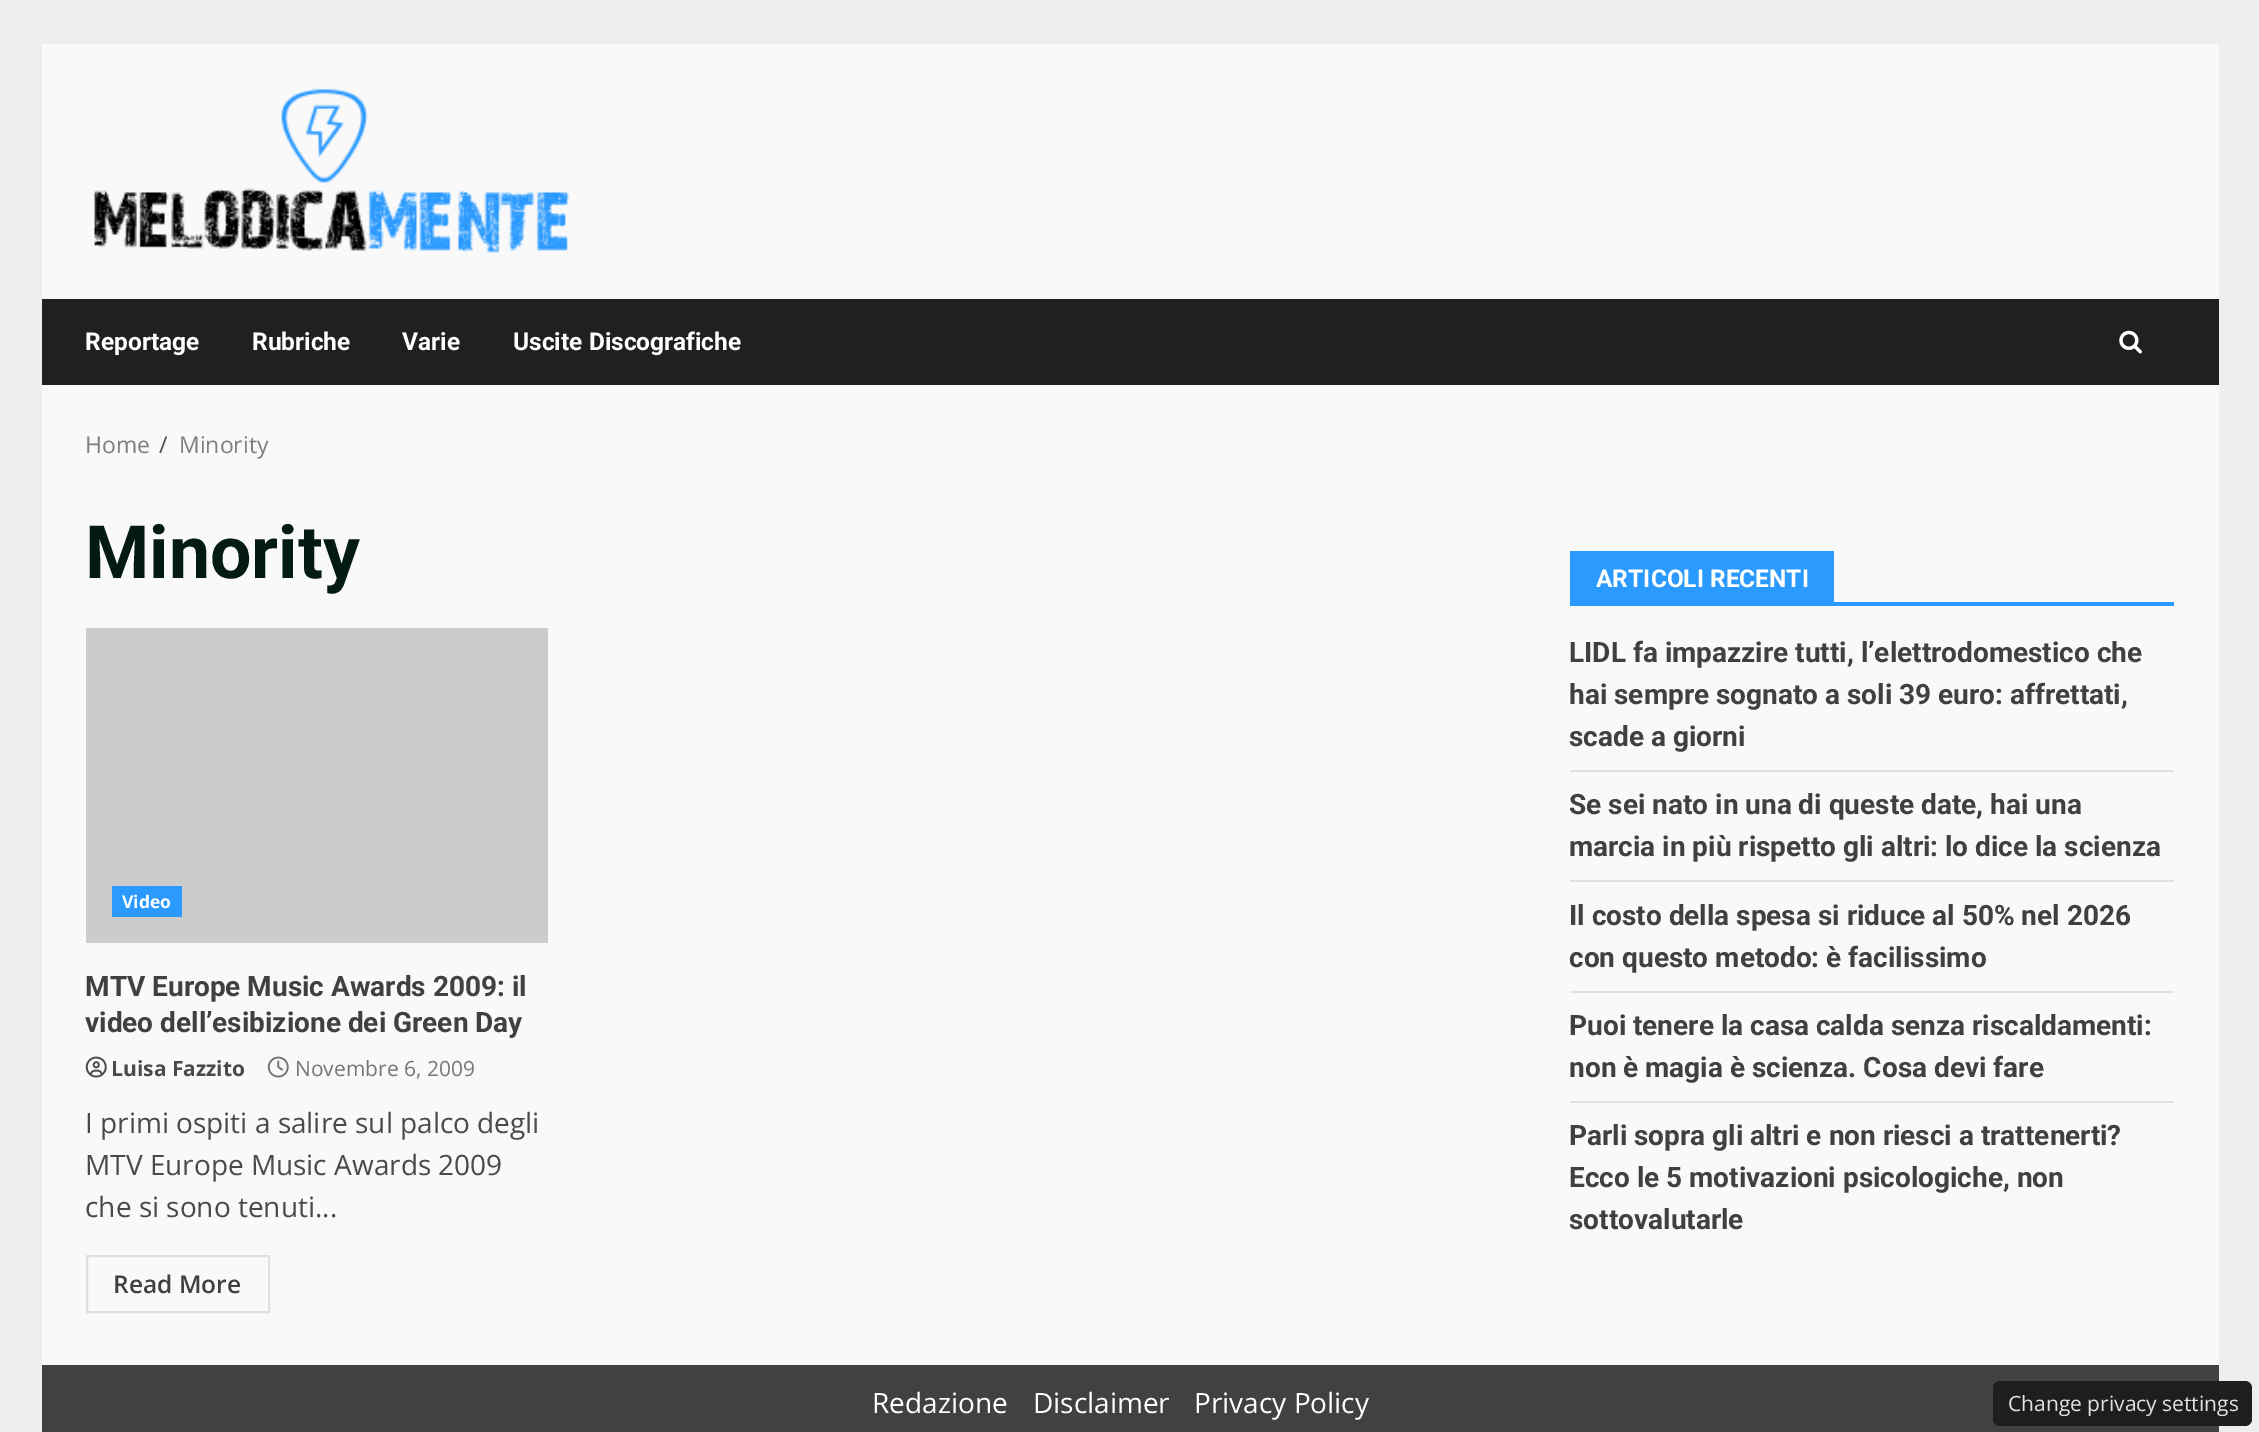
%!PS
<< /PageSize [2259 1432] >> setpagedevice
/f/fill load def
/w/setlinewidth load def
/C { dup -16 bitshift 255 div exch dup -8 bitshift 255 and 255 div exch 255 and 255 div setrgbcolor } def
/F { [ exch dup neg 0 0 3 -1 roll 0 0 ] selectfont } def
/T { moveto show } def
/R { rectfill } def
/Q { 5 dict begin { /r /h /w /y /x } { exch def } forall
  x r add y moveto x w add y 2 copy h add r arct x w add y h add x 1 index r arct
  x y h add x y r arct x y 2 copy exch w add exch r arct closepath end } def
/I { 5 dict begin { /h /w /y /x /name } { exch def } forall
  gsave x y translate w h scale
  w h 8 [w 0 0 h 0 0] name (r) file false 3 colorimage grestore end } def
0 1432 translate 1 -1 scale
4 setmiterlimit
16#EEEEEE C
0 0 2259 1432 R
16#F9F9F9 C
42 44 2177 1321 R
(1.rgb) 94 88 476 165 I
16#202020 C
42 299 2177 86 R
/Roboto-Bold 24.5 F
16#FFFFFF C
(Reportage) 85 350 T
(Rubriche) 252 350 T
(Varie) 402 350 T
(Uscite Discografiche) 513 350 T
(2.rgb) 2119 330 23 24 I
/OpenSans-Regular 23 F
16#7F7F7F C
(Home) 85 453 T
16#4A4A4A C
(/) 159 453 T
16#7F7F7F C
(Minority) 179 453 T
/Roboto-Bold 73.5 F
16#031B11 C
(Minority) 85 578 T
16#CCCCCC C
86 628 462 315 R
16#2B9AFF C
112 886 70 31 R
/OpenSans-Bold 17.5 F
16#FFFFFF C
(Video) 122 908 T
/Roboto-Bold 28 F
16#404040 C
(MTV Europe Music Awards 2009: il) 85 996 T
(video dell’esibizione dei Green Day) 85 1032 T
(3.rgb) 85 1056 22 22 I
/OpenSans-Bold 21 F
16#4A4A4A C
(Luisa Fazzito) 111 1076 T
(4.rgb) 267 1056 22 22 I
/OpenSans-Regular 21 F
16#767676 C
(Novembre 6, 2009) 295 1076 T
/OpenSans-Regular 28 F
16#4A4A4A C
(I primi ospiti a salire sul palco degli) 85 1133 T
(MTV Europe Music Awards 2009) 85 1175 T
(che si sono tenuti...) 85 1217 T
16#E0E0E0 C
2 w
87 1256 182 56 rectstroke
/OpenSans-SemiBold 24.5 F
16#404040 C
(Read More) 113 1293 T
16#2B9AFF C
1570 602 604 4 R
1570 551 264 51 R
/Roboto-Bold 24.5 F
16#FFFFFF C
(ARTICOLI RECENTI) 1596 587 T
16#E0E0E0 C
1570 770 604 2 R
/Roboto-Bold 28 F
16#404040 C
(LIDL fa impazzire tutti, l’elettrodomestico che) 1569 662 T
(hai sempre sognato a soli 39 euro: affrettati,) 1569 704 T
(scade a giorni) 1569 746 T
16#E0E0E0 C
1570 880 604 2 R
16#404040 C
(Se sei nato in una di queste date, hai una) 1569 814 T
(marcia in più rispetto gli altri: lo dice la scienza) 1569 856 T
16#E0E0E0 C
1570 991 604 2 R
16#404040 C
(Il costo della spesa si riduce al 50% nel 2026) 1569 925 T
(con questo metodo: è facilissimo) 1569 967 T
16#E0E0E0 C
1570 1101 604 2 R
16#404040 C
(Puoi tenere la casa calda senza riscaldamenti:) 1569 1035 T
(non è magia è scienza. Cosa devi fare) 1569 1077 T
(Parli sopra gli altri e non riesci a trattenerti?) 1569 1145 T
(Ecco le 5 motivazioni psicologiche, non) 1569 1187 T
(sottovalutarle) 1569 1229 T
16#414141 C
42 1365 2177 67 R
/OpenSans-Regular 28 F
16#FFFFFF C
(Redazione) 872 1413 T
(Disclaimer) 1033 1413 T
(Privacy Policy) 1194 1413 T
16#1E1E1E C
1993 1381 259 45 7 Q f
/OpenSans-Regular 21 F
16#E3E1E1 C
(Change privacy settings) 2008 1411 T
showpage
